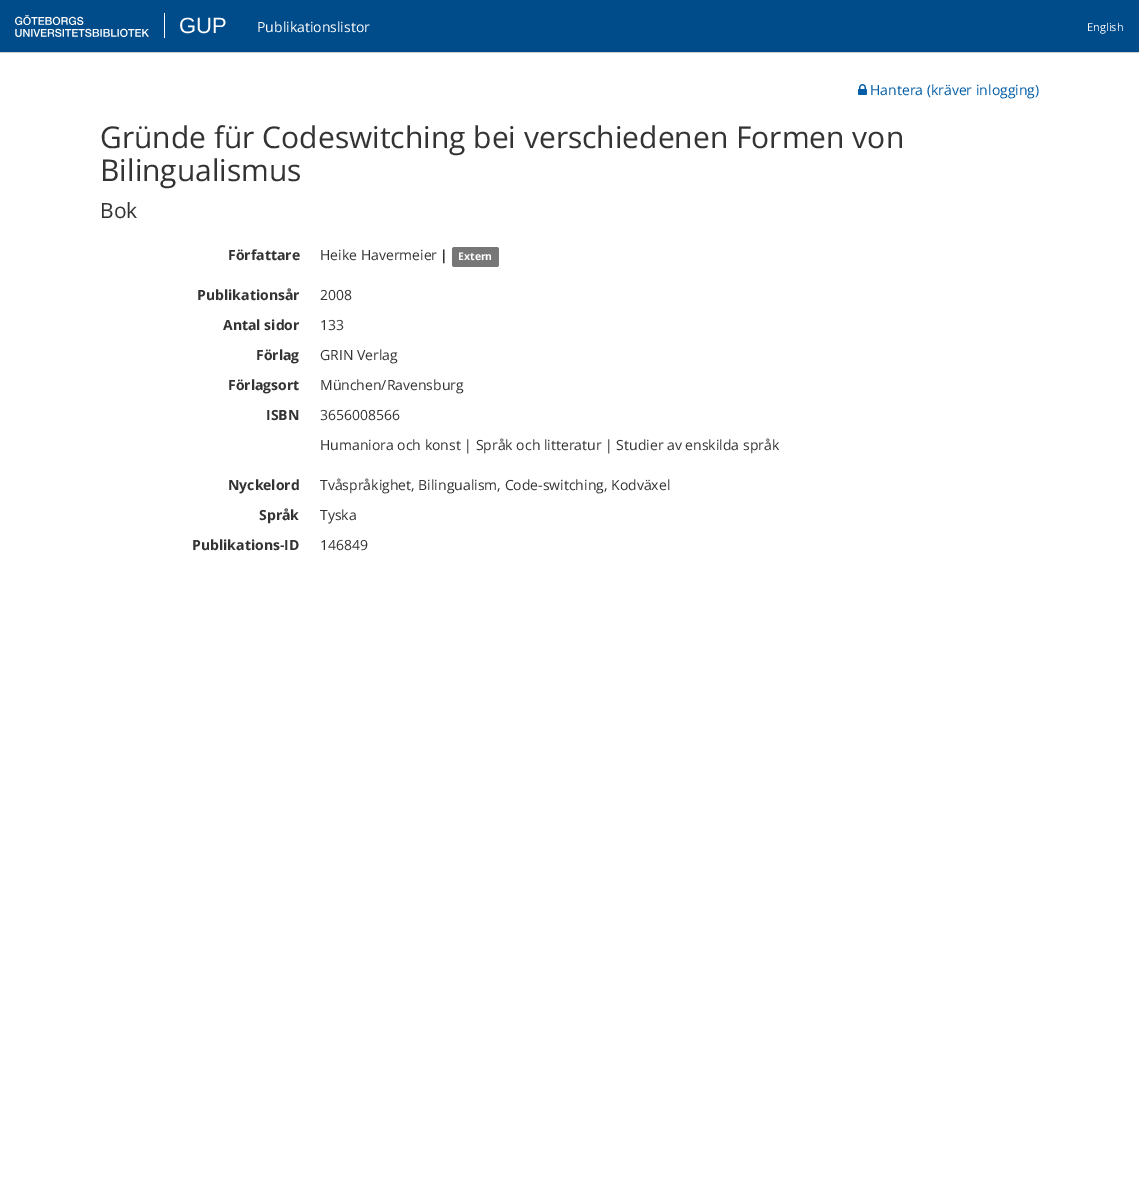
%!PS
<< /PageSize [1139 1196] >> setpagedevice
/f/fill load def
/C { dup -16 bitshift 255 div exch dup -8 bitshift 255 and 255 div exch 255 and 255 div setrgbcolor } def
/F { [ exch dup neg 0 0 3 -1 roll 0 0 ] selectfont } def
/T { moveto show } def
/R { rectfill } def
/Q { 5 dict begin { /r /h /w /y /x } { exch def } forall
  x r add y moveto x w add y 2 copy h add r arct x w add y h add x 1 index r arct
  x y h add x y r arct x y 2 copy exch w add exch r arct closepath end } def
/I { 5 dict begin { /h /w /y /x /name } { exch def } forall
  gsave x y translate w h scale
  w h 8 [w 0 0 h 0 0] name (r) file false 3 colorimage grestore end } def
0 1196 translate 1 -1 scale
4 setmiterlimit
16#FFFFFF C
0 0 1139 1196 R
16#004B89 C
0 0 1139 52 R
16#CCCCCC C
0 52 1139 1 R
(1.rgb) 15 15 134 22 I
16#FFFFFF C
164 13 1 25 R
/LiberationSans-Regular 22 F
(GUP) 179 33 T
/OpenSans-Regular 14 F
(Publikationslistor) 257 32 T
/OpenSans-Regular 11 F
(English) 1087 31 T
(2.rgb) 858 84 9 11 I
/OpenSans-Regular 14 F
16#025DA6 C
(Hantera \(kräver inlogging\)) 870 95 T
/OpenSans-Regular 30 F
16#333333 C
(Gründe für Codeswitching bei verschiedenen Formen von) 100 148 T
(Bilingualismus) 100 181 T
/OpenSans-Regular 21 F
(Bok) 100 218 T
/OpenSans-Bold 14 F
(Författare) 228 260 T
/OpenSans-Regular 14 F
(Heike Havermeier) 320 260 T
/OpenSans-Bold 14 F
(|) 440 260 T
16#777777 C
452 247 47 20 2.5 Q f
/OpenSans-Bold 10.5 F
16#FFFFFF C
(Extern) 458 260 T
/OpenSans-Bold 14 F
16#333333 C
(Publikationsår) 197 300 T
/OpenSans-Regular 14 F
(2008) 320 300 T
/OpenSans-Bold 14 F
(Antal sidor) 223 330 T
/OpenSans-Regular 14 F
(133) 320 330 T
/OpenSans-Bold 14 F
(Förlag) 256 360 T
/OpenSans-Regular 14 F
(GRIN Verlag) 320 360 T
/OpenSans-Bold 14 F
(Förlagsort) 228 390 T
/OpenSans-Regular 14 F
(München/Ravensburg) 320 390 T
/OpenSans-Bold 14 F
(ISBN) 266 420 T
/OpenSans-Regular 14 F
(3656008566) 320 420 T
(Humaniora och konst | Språk och litteratur | Studier av enskilda språk) 320 450 T
/OpenSans-Bold 14 F
(Nyckelord) 228 490 T
/OpenSans-Regular 14 F
(Tvåspråkighet, Bilingualism, Code-switching, Kodväxel) 320 490 T
/OpenSans-Bold 14 F
(Språk) 259 520 T
/OpenSans-Regular 14 F
(Tyska) 320 520 T
/OpenSans-Bold 14 F
(Publikations-ID) 192 550 T
/OpenSans-Regular 14 F
(146849) 320 550 T
showpage
